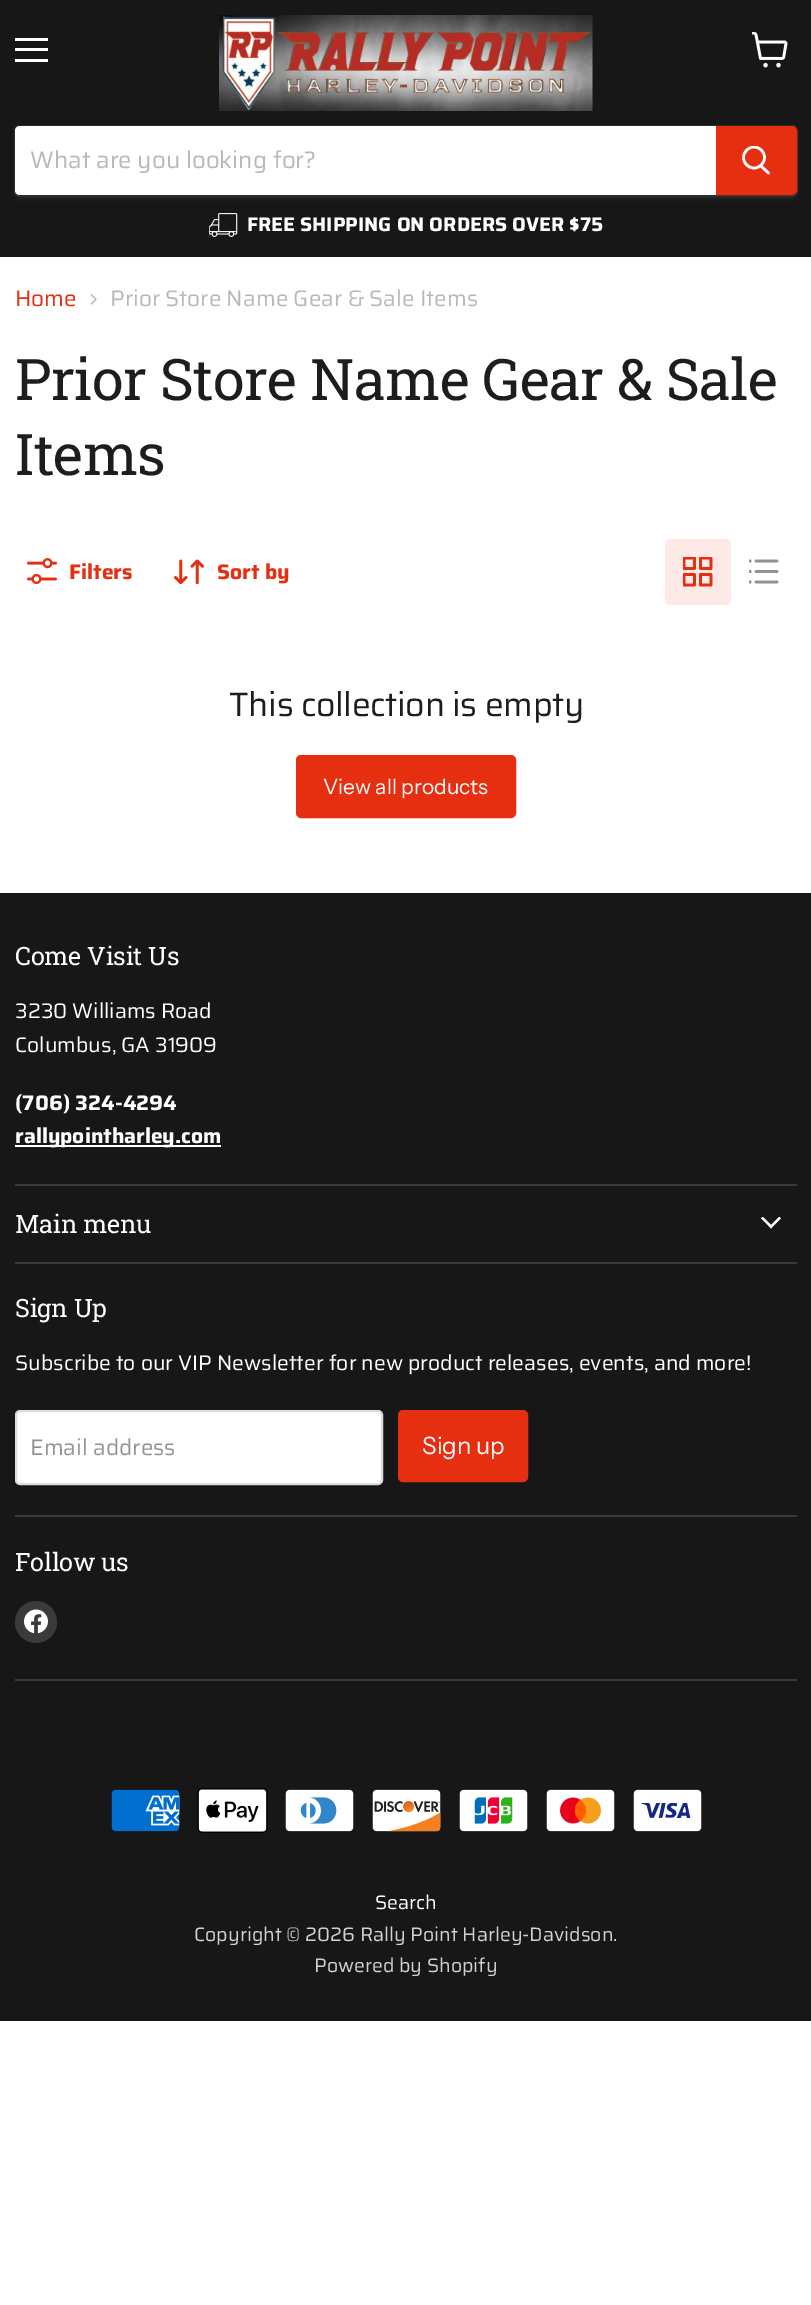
%!PS
<< /PageSize [811 2305] /PageUsesTransparency true >> setpagedevice
/m/moveto load def
/l/rlineto load def
/c/rcurveto load def
/z/closepath load def
/f/fill load def
/s/stroke load def
/q/gsave load def
/Q_/grestore load def
/w/setlinewidth load def
/C { dup -16 bitshift 255 div exch dup -8 bitshift 255 and 255 div exch 255 and 255 div setrgbcolor } def
/F { [ exch dup neg 0 0 3 -1 roll 0 0 ] selectfont } def
/T { moveto show } def
/R { rectfill } def
/A { dup .setfillconstantalpha .setstrokeconstantalpha } def
/O { newpath 0 360 arc closepath } def
/Q { 5 dict begin { /r /h /w /y /x } { exch def } forall
  x r add y moveto x w add y 2 copy h add r arct x w add y h add x 1 index r arct
  x y h add x y r arct x y 2 copy exch w add exch r arct closepath end } def
/S { 12 dict begin { /a /b /q /h /w /y /x } { exch def } forall gsave /was 0 def
  9 -2 -9 { dup b mul 4 div /e exch def 1 sub .425 mul 2.718 exch exp 1 add a .99 .min exch div /now exch def
    1 1 now sub 1 was sub div sub A /was now def
    w h .min e 2 mul add 0 gt { x e sub y e sub w e 2 mul add h e 2 mul add
      q e add b .6 mul add w h .min 2 div e add .min 0 .max Q fill } if } for grestore end } def
/I { 5 dict begin { /h /w /y /x /name } { exch def } forall
  gsave x y translate w h scale
  w h 8 [w 0 0 h 0 0] name (r) file false 3 colorimage grestore end } def
0 .pushpdf14devicefilter
0 2305 translate 1 -1 scale
4 setmiterlimit
16#FFFFFF C
0 0 811 2305 R
16#171717 C
0 0 811 257 R
16#FFFFFF C
15 38 33 3 R
15 48 33 3 R
15 59 33 3 R
(1.rgb) 752 32 36 36 I
(2.rgb) 219 15 374 96 I
q
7 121 m 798 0 l 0 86 l -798 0 l z 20 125 m 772 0 l 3.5 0 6 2.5 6 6 c 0 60 l 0 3.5 -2.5 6 -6 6 c -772 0 l -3.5 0 -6 -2.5 -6 -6 c 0 -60 l 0 -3.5 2.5 -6 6 -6 c z eoclip newpath
16#808080 C
14 128 784 72 6 2 .11 S
Q_
0.2 A
16#808080 C
2 w
15 126 782 70 5 Q s
1 A
16#FFFFFF C
20 126 m 696 0 l 0 69 l -696 0 l -3 0 -5 -2 -5 -5 c 0 -59 l 0 -3 2 -5 5 -5 c z f
/Saira-Regular 24 F
16#BAB8B8 C
(What are you looking for?) 30 168 T
16#E62E11 C
717 127 m 75 0 l 2 0 4 2 4 4 c 0 59 l 0 2 -2 4 -4 4 c -75 0 l z q f Q_
s
16#FFFFFF C
2.6 w
1 setlinecap
768.5 173 m -7.5 -7 l s
q
741 146 30 31 rectclip
0 setlinecap
754 157.5 10.5 O s
Q_
(3.rgb) 209 213 29 24 I
/Saira-Bold 19.7 F
(FREE SHIPPING ON ORDERS OVER $75) 247 231 T
/Saira-Regular 22.5 F
16#E62E11 C
(Home) 15 306 T
(4.rgb) 90 293 7 12 I
16#BAB8B8 C
(Prior Store Name Gear & Sale Items) 110 306 T
/RobotoSlab-Regular 57.4 F
16#1D1D1D C
15 400 m -.6 0 (Prior Store Name Gear & Sale) ashow
15 475 m -.6 0 (Items) ashow
(5.rgb) 27 558 30 27 I
/Saira-Bold 21.1 F
16#E62E11 C
(Filters) 69 579 T
(6.rgb) 174 559 30 26 I
(Sort by) 217 579 T
16#FDEAE7 C
665 539 66 66 5 Q f
(7.rgb) 683 557 30 30 I
(8.rgb) 749 559 30 25 I
/Saira-Regular 33.75 F
16#1D1D1D C
229 716 m -.3 0 (This collection is empty) ashow
16#E62E11 C
297 756 218 61 4 Q q f Q_
2 w
0 setlinecap
s
/InstrumentSans-Regular 21 F
16#FFFFFF C
(View all products) 323 794 T
16#171717 C
0 893 811 1128 R
16#3A3A3A C
15 1184 782 2 R
/RobotoSlab-Regular 25.25 F
16#FFFFFF C
15 965 m -.25 0 (Come Visit Us) ashow
/Saira-Regular 21.1 F
(3230 Williams Road) 15 1018 T
(Columbus, GA 31909) 15 1052 T
/Saira-Bold 21.1 F
(\(706\) 324-4294) 15 1110 T
15 1145 206 2 R
(rallypointharley.com) 15 1143 T
16#3A3A3A C
15 1262 782 2 R
/RobotoSlab-Regular 25.25 F
16#FFFFFF C
15 1233 m -.25 0 (Main menu) ashow
(9.rgb) 761 1217 20 12 I
16#3A3A3A C
15 1515 782 2 R
16#FFFFFF C
15 1317 m -.25 0 (Sign Up) ashow
/Saira-Regular 21.1 F
(Subscribe to our VIP Newsletter for new product releases, events, and more!) 15 1370 T
16 1411 366 73 4 Q q f Q_
16#DDDDDD C
s
/Saira-Regular 22.5 F
16#949494 C
(Email address) 30 1455 T
16#E62E11 C
399 1411 128 70 4 Q q f Q_
s
/InstrumentSans-Regular 24 F
16#FFFFFF C
(Sign up) 422 1454 T
16#3A3A3A C
15 1679 782 2 R
/RobotoSlab-Regular 25.25 F
16#FFFFFF C
15 1571 m -.25 0 (Follow us) ashow
16#3A3A3A C
36 1622 21 O f
(10.rgb) 24 1609 24 25 I
(11.rgb) 111 1789 69 43 I
(12.rgb) 197 1788 71 45 I
(13.rgb) 285 1789 69 43 I
(14.rgb) 372 1789 69 43 I
(15.rgb) 459 1789 69 43 I
(16.rgb) 546 1789 69 43 I
(17.rgb) 633 1789 69 43 I
/Saira-Regular 19.5 F
16#FFFFFF C
(Search) 375 1909 T
16#D1D1D1 C
(Copyright © 2026 Rally Point Harley-Davidson.) 194 1941 T
(Powered by Shopify) 314 1972 T
.poppdf14devicefilter showpage
